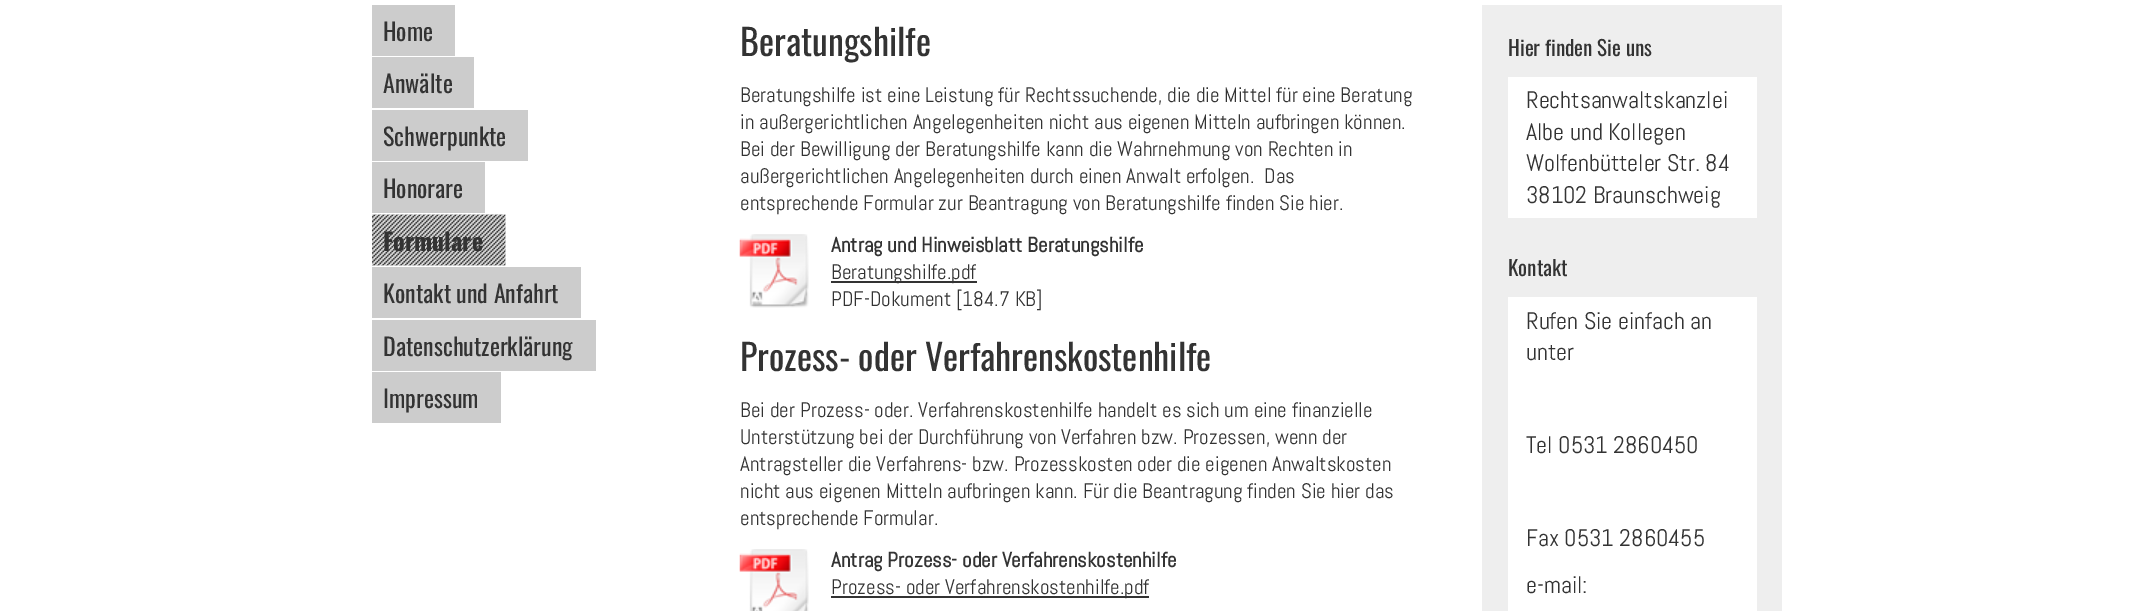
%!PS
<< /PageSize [2154 611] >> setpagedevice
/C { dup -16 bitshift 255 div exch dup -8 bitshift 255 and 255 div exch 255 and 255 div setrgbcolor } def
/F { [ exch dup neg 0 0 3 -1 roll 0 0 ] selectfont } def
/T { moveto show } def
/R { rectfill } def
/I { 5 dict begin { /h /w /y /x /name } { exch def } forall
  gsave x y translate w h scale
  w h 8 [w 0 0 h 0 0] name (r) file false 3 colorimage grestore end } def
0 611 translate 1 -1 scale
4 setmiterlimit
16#FFFFFF C
0 0 2154 611 R
16#CCCCCC C
372 5 83 51 R
/Oswald-Regular 24 F
16#333333 C
(Home) 383 41 T
16#CCCCCC C
372 57 102 51 R
16#333333 C
(Anwälte) 383 93 T
16#CCCCCC C
372 110 156 51 R
16#333333 C
(Schwerpunkte) 383 146 T
16#CCCCCC C
372 162 113 51 R
16#333333 C
(Honorare) 383 198 T
(1.rgb) 372 214 134 52 I
/Oswald-Bold 24 F
(Formulare) 383 251 T
16#CCCCCC C
372 267 209 51 R
/Oswald-Regular 24 F
16#333333 C
(Kontakt und Anfahrt) 383 303 T
16#CCCCCC C
372 320 224 51 R
16#333333 C
(Datenschutzerklärung) 383 356 T
16#CCCCCC C
372 372 129 51 R
16#333333 C
(Impressum) 383 408 T
/Oswald-Regular 36 F
(Beratungshilfe) 740 56 T
/Abel-Regular 21 F
(Beratungshilfe ist eine Leistung für Rechtssuchende, die die Mittel für eine Beratung) 740 102 T
(in außergerichtlichen Angelegenheiten nicht aus eigenen Mitteln aufbringen können.) 740 129 T
(Bei der Bewilligung der Beratungshilfe kann die Wahrnehmung von Rechten in) 740 156 T
(außergerichtlichen Angelegenheiten durch einen Anwalt erfolgen.  Das) 740 183 T
(entsprechende Formular zur Beantragung von Beratungshilfe finden Sie hier.) 740 210 T
(2.rgb) 739 234 70 74 I
/Abel-Bold 21 F
(Antrag und Hinweisblatt Beratungshilfe) 831 252 T
831 281 146 2 R
/Abel-Regular 21 F
(Beratungshilfe.pdf) 831 279 T
(PDF-Dokument [184.7 KB]) 831 306 T
/Oswald-Regular 36 F
(Prozess- oder Verfahrenskostenhilfe) 740 371 T
/Abel-Regular 21 F
(Bei der Prozess- oder. Verfahrenskostenhilfe handelt es sich um eine finanzielle) 740 417 T
(Unterstützung bei der Durchführung von Verfahren bzw. Prozessen, wenn der) 740 444 T
(Antragsteller die Verfahrens- bzw. Prozesskosten oder die eigenen Anwaltskosten) 740 471 T
(nicht aus eigenen Mitteln aufbringen kann. Für die Beantragung finden Sie hier das) 740 498 T
(entsprechende Formular.) 740 525 T
(3.rgb) 739 549 70 62 I
/Abel-Bold 21 F
(Antrag Prozess- oder Verfahrenskostenhilfe) 831 567 T
831 596 318 2 R
/Abel-Regular 21 F
(Prozess- oder Verfahrenskostenhilfe.pdf) 831 594 T
16#EEEEEE C
1482 5 300 606 R
/Oswald-Regular 21 F
16#333333 C
(Hier finden Sie uns) 1508 56 T
16#FFFFFF C
1508 77 249 141 R
/Abel-Regular 24 F
16#333333 C
(Rechtsanwaltskanzlei) 1526 108 T
(Albe und Kollegen) 1526 140 T
(Wolfenbütteler Str. 84) 1526 171 T
(38102 Braunschweig) 1526 203 T
/Oswald-Regular 21 F
(Kontakt) 1508 276 T
16#FFFFFF C
1508 297 249 314 R
/Abel-Regular 24 F
16#333333 C
(Rufen Sie einfach an) 1526 329 T
(unter) 1526 360 T
(Tel 0531 2860450) 1526 453 T
(Fax 0531 2860455) 1526 546 T
(e-mail:) 1526 593 T
showpage
